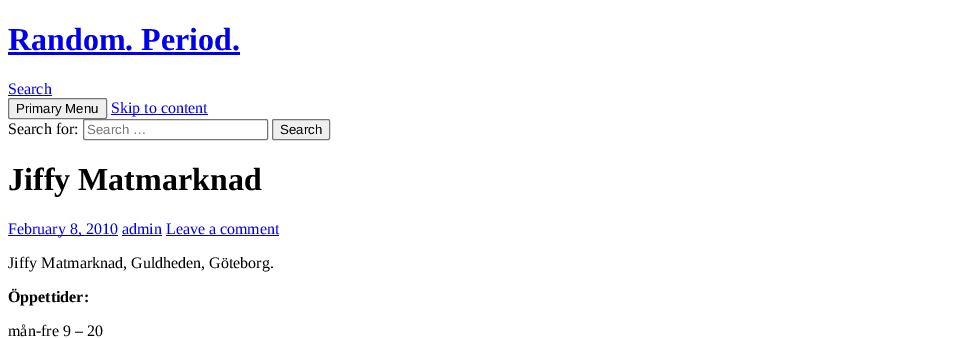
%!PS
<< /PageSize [975 338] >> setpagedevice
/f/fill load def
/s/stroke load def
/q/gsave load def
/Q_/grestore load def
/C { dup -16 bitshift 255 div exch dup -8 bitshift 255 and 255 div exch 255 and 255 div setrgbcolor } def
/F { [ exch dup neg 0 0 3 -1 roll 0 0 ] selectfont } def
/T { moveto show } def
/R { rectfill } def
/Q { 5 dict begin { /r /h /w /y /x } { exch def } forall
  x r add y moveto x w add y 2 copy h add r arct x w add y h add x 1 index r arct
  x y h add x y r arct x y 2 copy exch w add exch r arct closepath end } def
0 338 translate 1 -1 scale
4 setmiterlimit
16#FFFFFF C
0 0 975 338 R
/LiberationSerif-Bold 32 F
16#0000EE C
(Random. Period.) 8 50 T
8 52 232 3 R
/LiberationSerif-Regular 16 F
(Search) 8 94 T
8 95 44 1 R
16#EFEFEF C
8.5 98.5 98 20 1.5 Q q f Q_
16#767676 C
s
/LiberationSans-Regular 13.25 F
16#000000 C
(Primary Menu) 16 113 T
16#0000EE C
111 114 97 1 R
/LiberationSerif-Regular 16 F
(Skip to content) 111 113 T
16#000000 C
(Search for:) 8 134 T
16#767676 C
83.5 119.5 184 20 1.5 Q s
/LiberationSans-Regular 13.25 F
16#757575 C
(Search …) 87 134 T
16#EFEFEF C
272.5 119.5 57 20 1.5 Q q f Q_
16#767676 C
s
16#000000 C
(Search) 280 134 T
/LiberationSerif-Bold 32 F
(Jiffy Matmarknad) 8 190 T
16#0000EE C
8 235 110 1 R
/LiberationSerif-Regular 16 F
(February 8, 2010 admin Leave a comment) 8 234 T
122 235 40 1 R
166 235 113 1 R
16#000000 C
(Jiffy Matmarknad, Guldheden, Göteborg.) 8 268 T
/LiberationSerif-Bold 16 F
(Öppettider:) 8 302 T
/LiberationSerif-Regular 16 F
(mån-fre 9 – 20) 8 336 T
showpage
